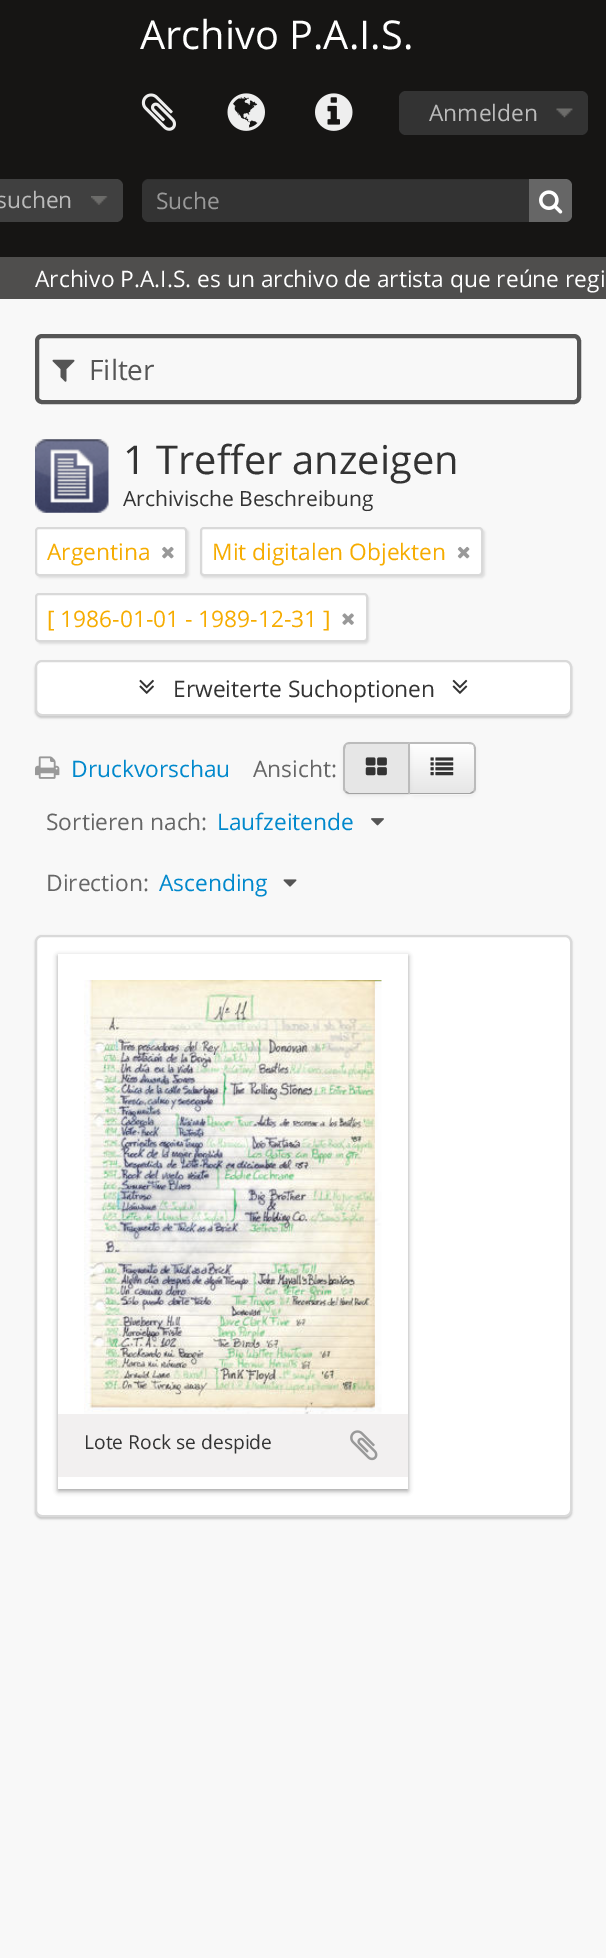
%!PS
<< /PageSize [606 1958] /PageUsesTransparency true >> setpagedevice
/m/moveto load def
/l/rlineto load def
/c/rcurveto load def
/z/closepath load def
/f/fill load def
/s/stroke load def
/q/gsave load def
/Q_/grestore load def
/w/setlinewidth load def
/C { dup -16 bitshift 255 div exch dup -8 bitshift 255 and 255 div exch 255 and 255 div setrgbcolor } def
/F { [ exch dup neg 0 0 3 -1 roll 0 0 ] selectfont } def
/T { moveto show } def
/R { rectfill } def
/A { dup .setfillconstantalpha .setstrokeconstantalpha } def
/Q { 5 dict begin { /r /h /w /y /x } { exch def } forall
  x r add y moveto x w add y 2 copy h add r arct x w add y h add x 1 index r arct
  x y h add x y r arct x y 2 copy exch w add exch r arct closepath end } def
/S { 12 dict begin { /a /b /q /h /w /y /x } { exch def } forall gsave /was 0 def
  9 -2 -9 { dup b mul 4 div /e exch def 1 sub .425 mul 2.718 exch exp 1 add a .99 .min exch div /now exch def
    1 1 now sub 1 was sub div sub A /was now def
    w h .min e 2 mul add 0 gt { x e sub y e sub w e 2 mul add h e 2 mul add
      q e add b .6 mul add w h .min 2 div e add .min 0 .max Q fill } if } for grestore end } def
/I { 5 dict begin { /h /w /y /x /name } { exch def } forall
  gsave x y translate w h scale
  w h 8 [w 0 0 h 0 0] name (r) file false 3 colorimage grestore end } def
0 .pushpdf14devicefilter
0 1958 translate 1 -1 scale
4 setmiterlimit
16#F8F8F8 C
0 0 606 1958 R
16#161514 C
0 0 606 257 R
/OpenSans-Regular 39.75 F
16#FFFFFF C
(Archivo P.A.I.S.) 140 49 T
(1.rgb) 141 93 35 38 I
(2.rgb) 227 93 38 38 I
(3.rgb) 315 93 38 38 I
16#333333 C
399 91 189 44 7 Q f
(4.rgb) 556 108 17 10 I
/OpenSans-Regular 22.75 F
16#BBBBBB C
(Anmelden) 429 121 T
16#404040 C
-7 179 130 43 7 Q f
(5.rgb) 91 196 17 9 I
16#BBBBBB C
(suchen) -4 208 T
16#333333 C
142 179 430 43 7 Q f
0.07 A
16#000000 C
149 180 m 416 0 l 4 0 7 3 7 7 c 0 -4 -2 -8 -7 -8 c -416 0 l -5 0 -7 4 -7 8 c 0 -4 3 -7 7 -7 c z f
1 A
16#999999 C
(Suche) 156 209 T
16#666666 C
529 179 m 36 0 l 4 0 7 3 7 7 c 0 29 l 0 4 -3 7 -7 7 c -36 0 l z f
(6.rgb) 539 190 24 24 I
16#4F4E4D C
0 257 606 42 R
16#FFFFFF C
(Archivo P.A.I.S. es un archivo de artista que reúne regi) 35 287 T
16#555555 C
4 w
37 336 542 66 5 Q s
(7.rgb) 52 359 23 23 I
/OpenSans-Regular 28 F
(Filter) 89 380 T
(8.rgb) 35 439 74 74 I
/OpenSans-Regular 39.75 F
16#333333 C
(1 Treffer anzeigen) 123 474 T
/OpenSans-Regular 21 F
(Archivische Beschreibung) 123 506 T
16#000000 C
37 529 152 49 4 1 .1 S
16#FFFFFF C
36 528 150 47 3 Q q f Q_
16#D9D9D9 C
2 w
s
/OpenSans-Regular 22.75 F
16#F6AC00 C
(Argentina) 47 560 T
(9.rgb) 162 546 12 13 I
16#000000 C
201 529 284 49 4 1 .1 S
16#FFFFFF C
201 528 281 47 3 Q q f Q_
16#D9D9D9 C
s
16#F6AC00 C
(Mit digitalen Objekten) 212 560 T
(10.rgb) 457 546 13 13 I
16#000000 C
37 595 332 49 4 1 .1 S
16#FFFFFF C
36 594 331 47 3 Q q f Q_
16#D9D9D9 C
s
16#F6AC00 C
([ 1986-01-01 - 1989-12-31 ]) 47 627 T
(11.rgb) 342 613 12 12 I
16#000000 C
35 662 537 56 7 1 .2 S
16#FFFFFF C
36 661 535 54 6 Q q f Q_
16#D9D9D9 C
s
(12.rgb) 139 679 15 15 I
16#333333 C
(Erweiterte Suchoptionen) 173 697 T
(13.rgb) 452 679 16 15 I
(14.rgb) 35 756 25 23 I
16#0088CC C
(Druckvorschau) 71 777 T
16#666666 C
(Ansicht:) 253 777 T
16#000000 C
408 744 68 52 7 2 .05 S
16#F5F5F5 C
408 742 m 61 0 l 4 0 7 3 7 7 c 0 39 l 0 4 -3 7 -7 7 c -61 0 l z f
q
408 742 m 61 0 l 4 0 7 3 7 7 c 0 39 l 0 4 -3 7 -7 7 c -61 0 l z clip newpath
q 410 744 m 66 0 l 0 49 l -66 0 l z clip newpath
<< /ShadingType 2 /ColorSpace /DeviceRGB /Coords [442 744 442 793] /Extend [true true] /Function << /FunctionType 2 /Domain [0 1] /C0 [1 1 1] /C1 [.902 .902 .902] /N 1 >> >> shfill Q_
Q_
16#BBBBBB C
408 742 m 2 2 l 59 0 l 1 0 3 0 4 1 c 1 -1 l -1 -1 -3 -2 -5 -2 c z f
476 788 m 0 -39 l 0 -2 -1 -4 -2 -5 c -1 1 l 1 1 1 3 1 4 c 0 39 l 0 1 0 2 -1 3 c 1 1 l 1 -1 2 -2 2 -4 c z f
16#A2A2A2 C
474 792 m -1 1 -3 2 -5 2 c -61 0 l 2 -2 l 0 1 l 60 0 l 3 -2 l z f
16#000000 C
343 744 67 52 7 2 .05 S
16#E6E6E6 C
350 742 m 60 0 l 0 53 l -60 0 l -4 0 -7 -3 -7 -7 c 0 -39 l 0 -4 3 -7 7 -7 c z f
16#BBBBBB C
350 742 m -2 0 -4 1 -5 2 c 1 1 l 1 -1 2 -1 4 -1 c 58 0 l 2 -2 l z f
410 742 m 0 52 l -2 -1 l 0 -49 l z f
16#A2A2A2 C
409 794 m -59 0 l -2 0 -4 -1 -5 -2 c 1 -1 l 3 2 l 59 0 l z f
16#BBBBBB C
343 749 m 0 39 l 0 2 1 3 2 4 c 1 -1 l -1 -1 -1 -2 -1 -3 c 0 -39 l 0 -1 1 -3 1 -4 c -1 -1 l -1 1 -2 3 -2 5 c z f
(15.rgb) 365 757 22 19 I
(16.rgb) 430 757 24 19 I
16#666666 C
(Sortieren nach:) 46 830 T
16#0088CC C
(Laufzeitende) 217 830 T
(17.rgb) 371 818 13 8 I
16#666666 C
(Direction:) 46 891 T
16#0088CC C
(Ascending) 159 891 T
(18.rgb) 283 879 14 8 I
16#000000 C
35 936 537 583 7 1 .2 S
16#FFFFFF C
36 936 535 580 6 Q q f Q_
16#D9D9D9 C
s
16#191919 C
58 956 350 535 0 2.5 .4 S
16#FFFFFF C
58 954 350 535 R
(19.rgb) 84 980 298 434 I
16#F2F0F0 C
58 1414 350 63 R
/OpenSans-Regular 19.25 F
16#333333 C
(Lote Rock se despide) 84 1449 T
(20.rgb) 350 1430 28 31 I
.poppdf14devicefilter showpage
